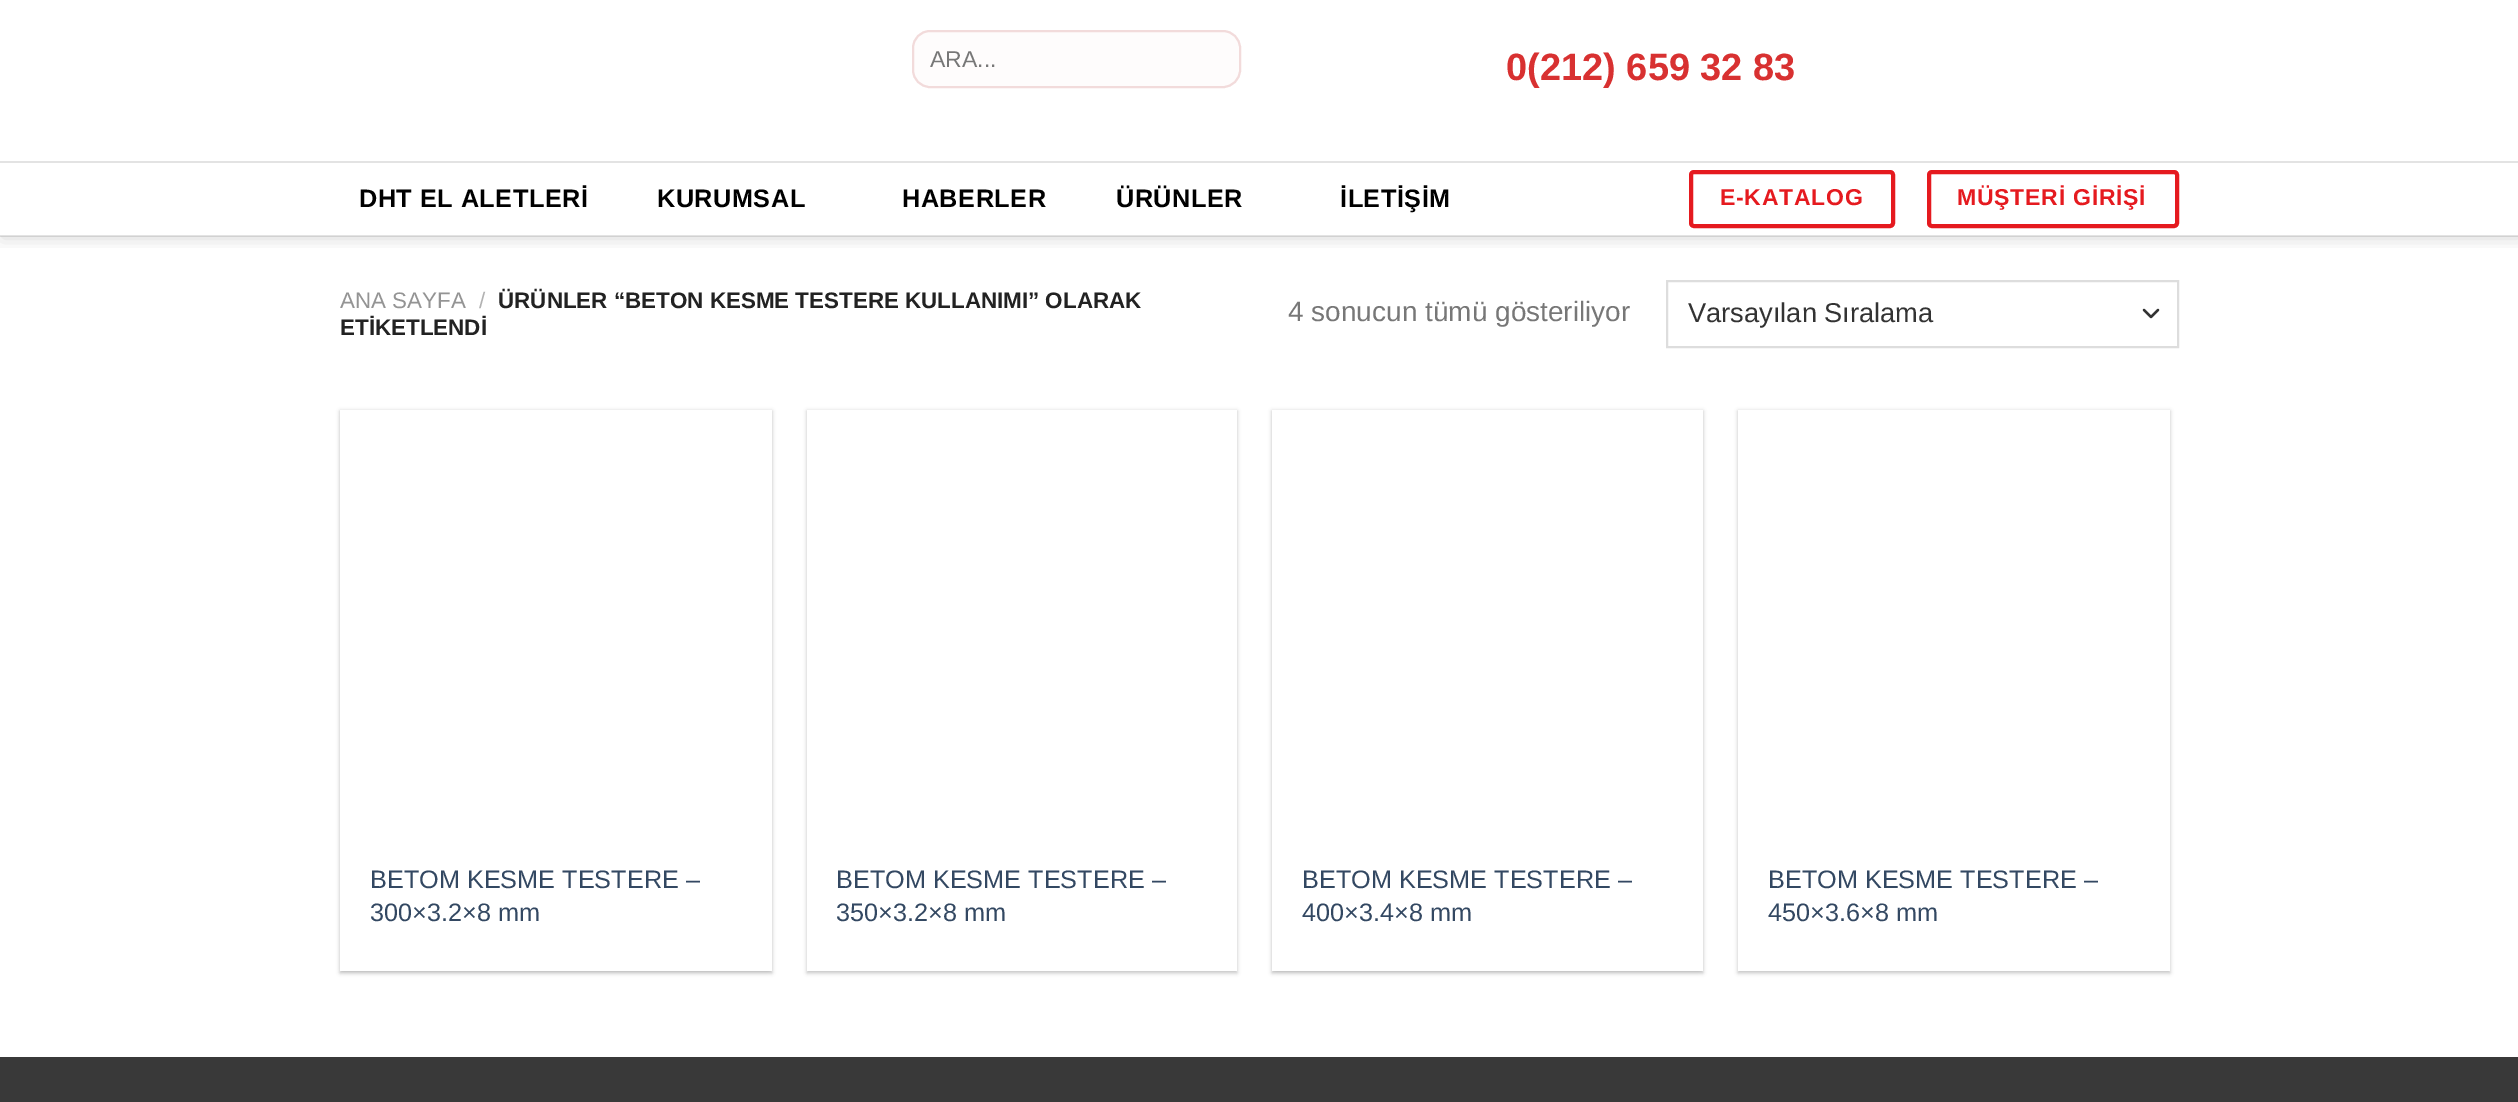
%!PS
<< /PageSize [2518 1102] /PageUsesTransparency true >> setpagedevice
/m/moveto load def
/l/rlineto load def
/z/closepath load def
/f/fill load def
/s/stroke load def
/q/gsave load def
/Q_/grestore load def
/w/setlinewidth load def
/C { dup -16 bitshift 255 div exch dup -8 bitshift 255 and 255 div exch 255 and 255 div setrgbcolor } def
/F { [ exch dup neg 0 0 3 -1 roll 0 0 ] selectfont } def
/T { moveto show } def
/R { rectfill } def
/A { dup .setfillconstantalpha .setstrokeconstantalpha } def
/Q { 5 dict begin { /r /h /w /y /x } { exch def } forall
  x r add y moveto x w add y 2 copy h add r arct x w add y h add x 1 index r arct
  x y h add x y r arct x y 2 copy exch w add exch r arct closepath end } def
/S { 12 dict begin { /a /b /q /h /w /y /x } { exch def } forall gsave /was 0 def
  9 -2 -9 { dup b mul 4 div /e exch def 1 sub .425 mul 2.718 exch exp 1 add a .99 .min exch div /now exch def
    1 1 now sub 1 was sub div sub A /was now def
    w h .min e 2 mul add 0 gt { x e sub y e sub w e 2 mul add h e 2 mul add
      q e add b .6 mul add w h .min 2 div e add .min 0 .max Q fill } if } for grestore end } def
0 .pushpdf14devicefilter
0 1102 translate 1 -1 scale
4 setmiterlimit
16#FFFFFF C
0 0 2518 1102 R
q
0 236 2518 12 rectclip
16#000000 C
2 -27 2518 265 0 9 .15 S
Q_
16#FEFCFC C
913 31 327 56 17 Q q f Q_
16#F2DBDB C
2 w
s
/LiberationSans-Regular 23 F
16#777777 C
(ARA...) 930 67 T
/LiberationSans-Bold 38 F
16#D83131 C
(0\(212\) 659 32 83) 1506 80 T
16#E3E3E3 C
0 161 2518 2 R
0.11 A
16#000000 C
0 235 2518 2 R
/LiberationSans-Bold 25.25 F
1 A
359 207 m .5 0 (DHT EL ALETLERİ) ashow
657 207 m .5 0 (KURUMSAL) ashow
902 207 m .5 0 (HABERLER) ashow
1116 207 m .5 0 (ÜRÜNLER) ashow
1340 207 m .5 0 (İLETİŞİM) ashow
16#E51A1F C
4 w
1691 172 202 54 3 Q s
/LiberationSans-Bold 23 F
1720 205 m .75 0 (E-KATALOG) ashow
1929 172 248 54 3 Q s
1957 205 m .75 0 (MÜŞTERİ GİRİŞİ) ashow
/LiberationSans-Regular 22.4 F
16#949494 C
(ANA SAYFA) 340 308 T
16#B2B2B2 C
(/) 479 308 T
/LiberationSans-Bold 22.4 F
16#222222 C
(ÜRÜNLER “BETON KESME TESTERE KULLANIMI” OLARAK) 498 308 T
(ETİKETLENDİ) 340 335 T
/LiberationSans-Regular 28 F
16#777777 C
(4 sonucun tümü gösteriliyor) 1288 321 T
16#333333 C
2.3 w
1 setlinecap
1 setlinejoin
2144 310 m 7 7 l 7 -7 l s
16#DDDDDD C
2 w
0 setlinecap
0 setlinejoin
1667 281 511 66 rectstroke
/LiberationSans-Regular 27.25 F
16#333333 C
(Varsayılan Sıralama) 1688 322 T
16#000000 C
340 411 432 562 0 2 .24 S
343 415 425 555 0 2.5 .12 S
16#FFFFFF C
340 410 432 561 R
/LiberationSans-Regular 25.25 F
16#334862 C
(BETOM KESME TESTERE –) 370 888 T
(300×3.2×8 mm) 370 921 T
q
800 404 m 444 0 l 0 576 l -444 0 l z 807 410 m 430 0 l 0 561 l -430 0 l z eoclip newpath
16#000000 C
807 411 430 562 0 2 .24 S
Q_
(BETOM KESME TESTERE –) 836 888 T
(350×3.2×8 mm) 836 921 T
16#000000 C
1272 411 431 562 0 2 .24 S
1276 415 423 555 0 2.5 .12 S
16#FFFFFF C
1272 410 431 561 R
16#334862 C
(BETOM KESME TESTERE –) 1302 888 T
(400×3.4×8 mm) 1302 921 T
q
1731 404 m 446 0 l 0 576 l -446 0 l z 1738 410 m 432 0 l 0 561 l -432 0 l z eoclip newpath
16#000000 C
1738 411 432 562 0 2 .24 S
Q_
(BETOM KESME TESTERE –) 1768 888 T
(450×3.6×8 mm) 1768 921 T
16#393939 C
0 1057 2518 45 R
.poppdf14devicefilter showpage
